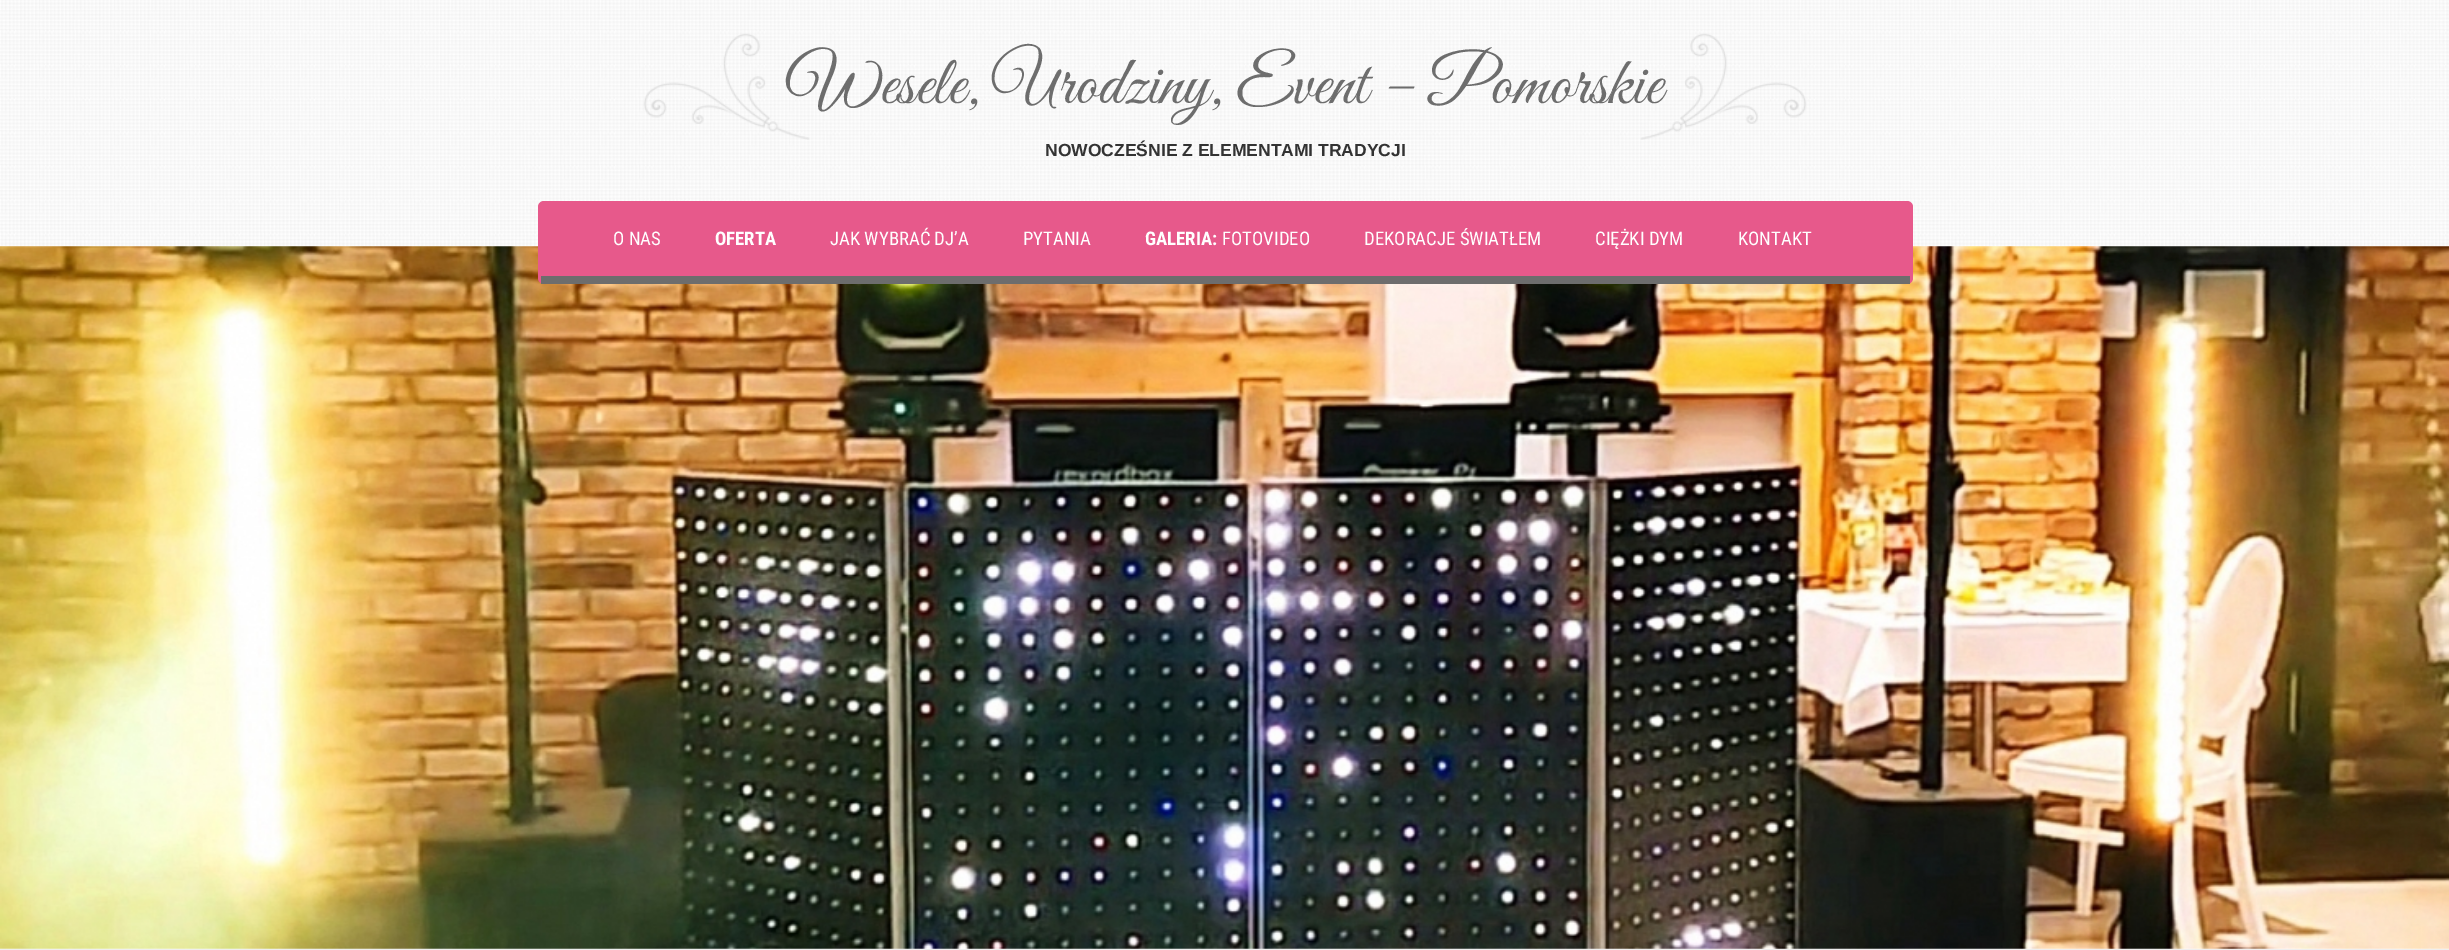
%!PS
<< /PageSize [2449 950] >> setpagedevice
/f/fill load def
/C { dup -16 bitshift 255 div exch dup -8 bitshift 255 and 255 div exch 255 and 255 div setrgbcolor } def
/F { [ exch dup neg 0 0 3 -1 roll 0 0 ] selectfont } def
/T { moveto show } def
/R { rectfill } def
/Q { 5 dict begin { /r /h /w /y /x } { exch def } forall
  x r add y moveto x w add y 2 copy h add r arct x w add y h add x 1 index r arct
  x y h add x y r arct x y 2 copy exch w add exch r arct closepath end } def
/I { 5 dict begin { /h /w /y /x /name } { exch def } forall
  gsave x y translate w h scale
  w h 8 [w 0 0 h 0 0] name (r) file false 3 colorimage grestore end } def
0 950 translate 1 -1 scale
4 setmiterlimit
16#FFFFFF C
0 0 2449 950 R
(1.rgb) 0 0 2449 247 I
(2.rgb) 643 33 167 107 I
(3.rgb) 1640 33 167 107 I
/GreatVibes-Regular 68.75 F
16#6D6D6D C
(Wesele, Urodziny, Event – Pomorskie) 787 103 T
/LiberationSans-Bold 17.5 F
16#333333 C
(NOWOCZEŚNIE Z ELEMENTAMI TRADYCJI) 1045 156 T
(4.rgb) 0 246 2449 703 I
16#E7598B C
538 201 1375 83 6 Q f
16#6D6D6D C
541 276 1369 8 R
/RobotoCondensed-Regular 18.75 F
16#FFFFFF C
(O NAS) 613 245 T
/RobotoCondensed-Bold 18.75 F
(OFERTA) 715 245 T
/RobotoCondensed-Regular 18.75 F
(JAK WYBRAĆ DJ’A) 830 245 T
(PYTANIA) 1023 245 T
/RobotoCondensed-Bold 18.75 F
(GALERIA:) 1145 245 T
/RobotoCondensed-Regular 18.75 F
(FOTOVIDEO) 1222 245 T
(DEKORACJE ŚWIATŁEM) 1364 245 T
(CIĘŻKI DYM) 1595 245 T
(KONTAKT) 1738 245 T
16#EFEFEF C
0 949 2449 1 R
showpage
